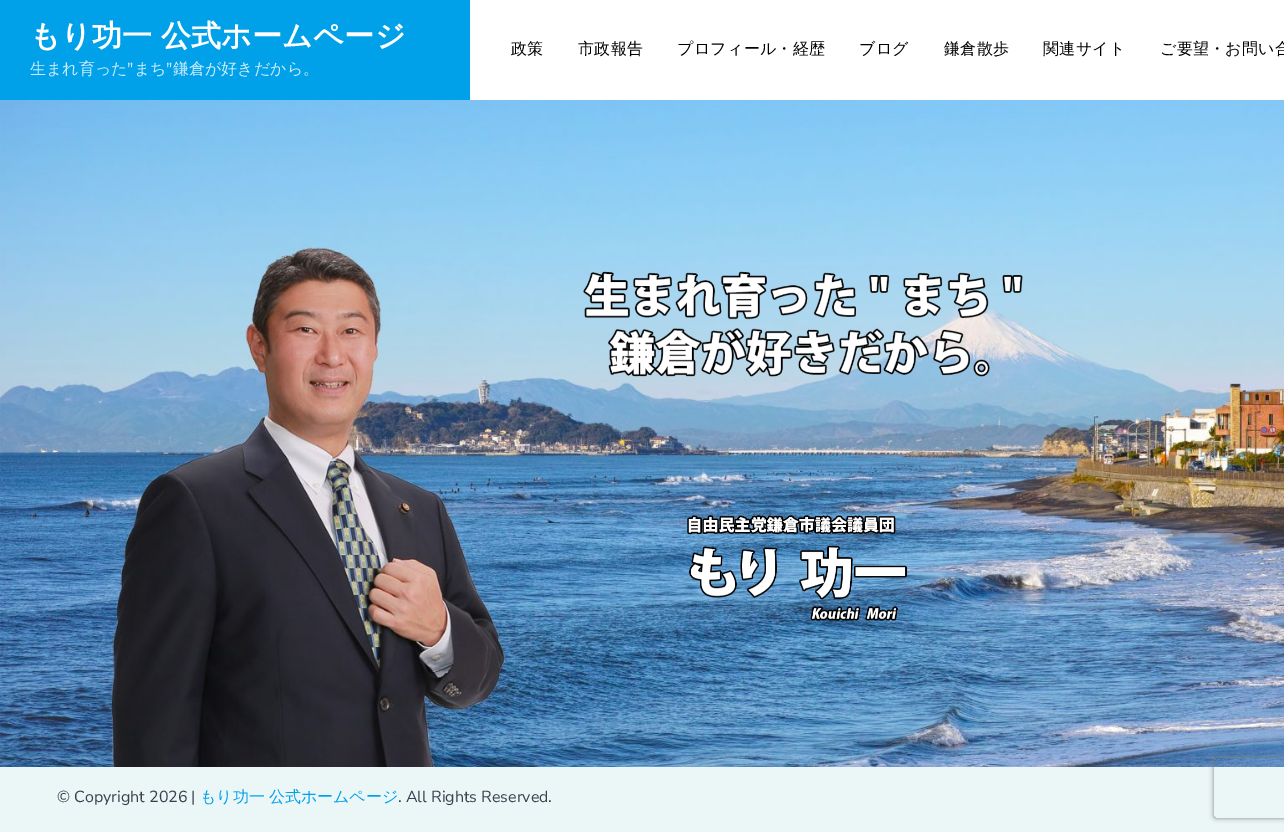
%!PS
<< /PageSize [1284 832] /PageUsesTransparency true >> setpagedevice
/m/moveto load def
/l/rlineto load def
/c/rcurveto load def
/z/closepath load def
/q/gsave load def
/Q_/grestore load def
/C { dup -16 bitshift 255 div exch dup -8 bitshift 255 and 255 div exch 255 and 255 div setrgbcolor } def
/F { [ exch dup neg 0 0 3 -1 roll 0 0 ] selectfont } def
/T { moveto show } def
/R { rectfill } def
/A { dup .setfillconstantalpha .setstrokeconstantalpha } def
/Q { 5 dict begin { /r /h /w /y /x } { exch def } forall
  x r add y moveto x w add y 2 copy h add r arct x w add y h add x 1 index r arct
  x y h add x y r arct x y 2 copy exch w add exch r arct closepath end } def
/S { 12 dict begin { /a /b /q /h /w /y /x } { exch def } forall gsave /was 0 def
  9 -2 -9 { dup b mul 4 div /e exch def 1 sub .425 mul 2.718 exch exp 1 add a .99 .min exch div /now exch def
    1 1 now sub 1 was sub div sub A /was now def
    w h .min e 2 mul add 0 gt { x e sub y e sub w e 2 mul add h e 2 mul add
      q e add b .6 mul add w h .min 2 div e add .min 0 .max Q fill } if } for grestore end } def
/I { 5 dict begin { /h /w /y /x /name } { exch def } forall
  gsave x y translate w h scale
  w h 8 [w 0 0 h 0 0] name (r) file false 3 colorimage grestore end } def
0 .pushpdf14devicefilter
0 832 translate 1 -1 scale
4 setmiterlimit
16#FFFFFF C
0 0 1284 832 R
16#00A1E9 C
0 0 470 100 R
/WenQuanYiZenHei-Bold 30 F
16#FFFFFF C
30 46 m -1 0 32 .25 0 (もり功一 公式ホームページ) awidthshow
/WenQuanYiZenHei-Medium 16 F
16#CCECFB C
(生まれ育った) 30 74 T
/NunitoSans-Regular 16 F
(") 127 74 T
/WenQuanYiZenHei-Medium 16 F
(まち) 134 74 T
/NunitoSans-Regular 16 F
(") 166 74 T
/WenQuanYiZenHei-Medium 16 F
(鎌倉が好きだから。) 173 74 T
16#000000 C
511 54 m .25 0 (政策) ashow
578 54 m .25 0 (市政報告) ashow
677 54 m .25 0 (プロフィール・経歴) ashow
859 54 m .25 0 (ブログ) ashow
944 54 m .25 0 (鎌倉散歩) ashow
1043 54 m .25 0 (関連サイト) ashow
1160 54 m .25 0 (ご要望・お問い合) ashow
(1.rgb) 0 100 1284 667 I
(2.rgb) 583 271 440 106 I
(3.rgb) 687 515 220 106 I
16#EBF6F7 C
0 768 1284 64 R
16#EDF7F8 C
0 767 1284 1 R
/NunitoSans-Regular 16 F
16#393F4C C
(© Copyright 2026 |) 57 802 T
/WenQuanYiZenHei-Medium 16 F
16#00A1E9 C
200 802 m -1 0 32 (もり功一 公式ホームページ) widthshow
/NunitoSans-Regular 16 F
16#393F4C C
(. All Rights Reserved.) 398 802 T
q
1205 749 m 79 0 l 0 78 l -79 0 l z 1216 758 m 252 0 l 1 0 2 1 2 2 c 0 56 l 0 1 -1 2 -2 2 c -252 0 l -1 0 -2 -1 -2 -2 c 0 -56 l 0 -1 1 -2 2 -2 c z eoclip newpath
16#808080 C
1214 758 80 60 2 2.5 1 S
Q_
.poppdf14devicefilter showpage
